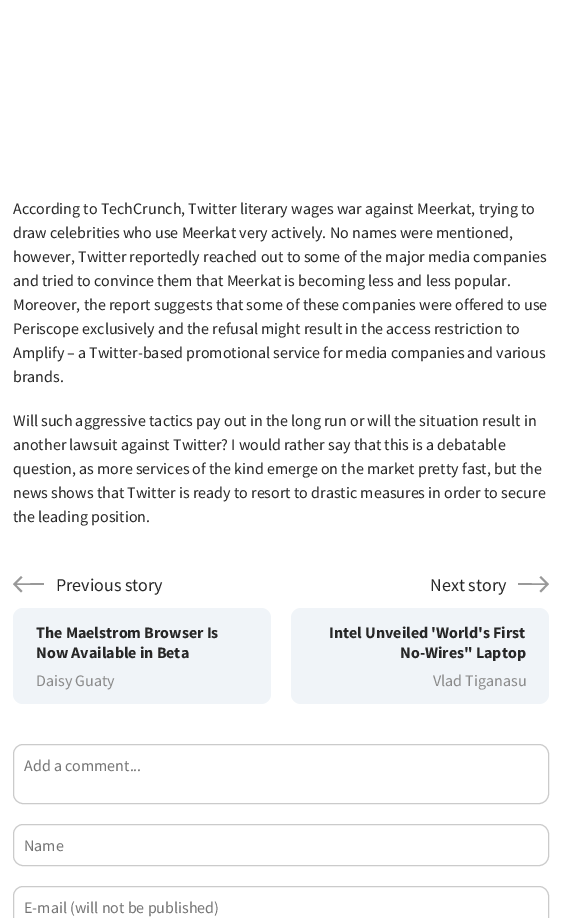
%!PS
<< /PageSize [562 918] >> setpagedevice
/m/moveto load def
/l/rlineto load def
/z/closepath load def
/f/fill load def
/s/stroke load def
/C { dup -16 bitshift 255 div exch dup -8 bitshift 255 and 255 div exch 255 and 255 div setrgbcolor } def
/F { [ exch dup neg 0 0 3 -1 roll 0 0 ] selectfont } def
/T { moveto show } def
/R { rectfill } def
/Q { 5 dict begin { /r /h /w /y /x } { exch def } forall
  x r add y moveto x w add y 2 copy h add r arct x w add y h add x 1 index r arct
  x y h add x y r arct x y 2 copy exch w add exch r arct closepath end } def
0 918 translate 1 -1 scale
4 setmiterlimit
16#FFFFFF C
0 0 562 918 R
/SourceSansPro-Regular 16 F
16#272727 C
(According to TechCrunch, Twitter literary wages war against Meerkat, trying to) 13 214 T
(draw celebrities who use Meerkat very actively. No names were mentioned,) 13 238 T
(however, Twitter reportedly reached out to some of the major media companies) 13 262 T
(and tried to convince them that Meerkat is becoming less and less popular.) 13 286 T
(Moreover, the report suggests that some of these companies were offered to use) 13 310 T
(Periscope exclusively and the refusal might result in the access restriction to) 13 334 T
(Amplify – a Twitter-based promotional service for media companies and various) 13 358 T
(brands.) 13 382 T
(Will such aggressive tactics pay out in the long run or will the situation result in) 13 426 T
(another lawsuit against Twitter? I would rather say that this is a debatable) 13 450 T
(question, as more services of the kind emerge on the market pretty fast, but the) 13 474 T
(news shows that Twitter is ready to resort to drastic measures in order to secure) 13 498 T
(the leading position.) 13 522 T
16#999999 C
21 576 m 1.5 1.5 l -6 6 l 27.5 -.5 l 0 2 l -27.5 0 l 6 6 l -1.5 1.5 l -8 -8.5 l z f
/SourceSansPro-Regular 18 F
16#272727 C
(Previous story) 56 591 T
16#F0F4F8 C
13 608 258 96 10 Q f
/SourceSansPro-Bold 16 F
16#272727 C
(The Maelstrom Browser Is) 36 638 T
(Now Available in Beta) 36 658 T
/SourceSansPro-Regular 16 F
16#8A8A8A C
(Daisy Guaty) 36 686 T
/SourceSansPro-Regular 18 F
16#272727 C
(Next story) 430 591 T
16#999999 C
541 576 m -1.5 1.5 l 6 6 l -27.5 -.5 l 0 2 l 27.5 0 l -6 6 l 1.5 1.5 l 8 -8.5 l z f
16#F0F4F8 C
291 608 258 96 10 Q f
/SourceSansPro-Bold 16 F
16#272727 C
(Intel Unveiled 'World's First) 329 638 T
(No-Wires" Laptop) 400 658 T
/SourceSansPro-Regular 16 F
16#8A8A8A C
(Vlad Tiganasu) 433 686 T
16#CBCBCB C
13.5 744.5 535 59 9.5 Q s
16#757575 C
(Add a comment...) 24 771 T
16#CBCBCB C
13.5 824.5 535 41 9.5 Q s
16#757575 C
(Name) 24 851 T
16#CBCBCB C
13.5 886.5 535 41 9.5 Q s
16#757575 C
(E-mail \(will not be published\)) 24 913 T
showpage
